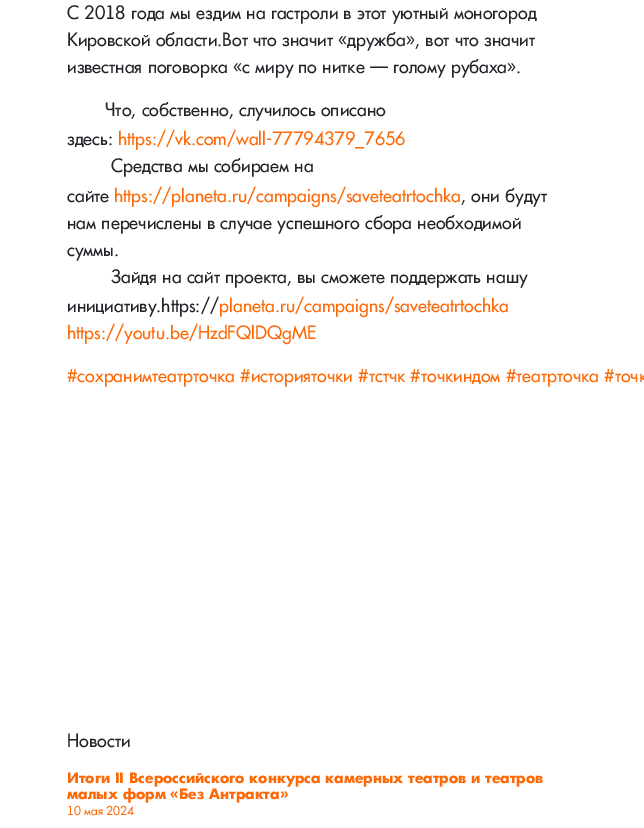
%!PS
<< /PageSize [644 828] >> setpagedevice
/C { dup -16 bitshift 255 div exch dup -8 bitshift 255 and 255 div exch 255 and 255 div setrgbcolor } def
/F { [ exch dup neg 0 0 3 -1 roll 0 0 ] selectfont } def
/T { moveto show } def
/R { rectfill } def
0 828 translate 1 -1 scale
4 setmiterlimit
16#FFFFFF C
0 0 644 828 R
/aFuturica-Regular 18 F
16#212529 C
(С 2018 года мы ездим на гастроли в этот уютный моногород) 67 19 T
(Кировской области.Вот что значит «дружба», вот что значит) 67 46 T
(известная поговорка «с миру по нитке — голому рубаха».) 67 73 T
(Что, собственно, случилось описано) 105 116 T
(здесь:) 67 145 T
16#FE6908 C
(https://vk.com/wall-77794379_7656) 118 145 T
16#212529 C
(Средства мы собираем на) 111 172 T
(сайте) 67 202 T
16#FE6908 C
(https://planeta.ru/campaigns/saveteatrtochka) 114 202 T
16#212529 C
(, они будут) 461 202 T
(нам перечислены в случае успешного сбора необходимой) 67 229 T
(суммы.) 67 256 T
(Зайдя на сайт проекта, вы сможете поддержать нашу) 111 283 T
(инициативу.https://) 67 312 T
16#FE6908 C
(planeta.ru/campaigns/saveteatrtochka) 219 312 T
(https://youtu.be/HzdFQlDQgME) 67 339 T
(#сохранимтеатрточка #историяточки #тстчк #точкиндом #театрточка #точк) 67 382 T
16#212529 C
(Новости) 67 747 T
/aFuturica-ExtraBold 14 F
16#FE6908 C
(Итоги II Всероссийского конкурса камерных театров и театров) 67 783 T
(малых форм «Без Антракта») 67 799 T
/aFuturica-Regular 12 F
(10 мая 2024) 67 815 T
showpage
